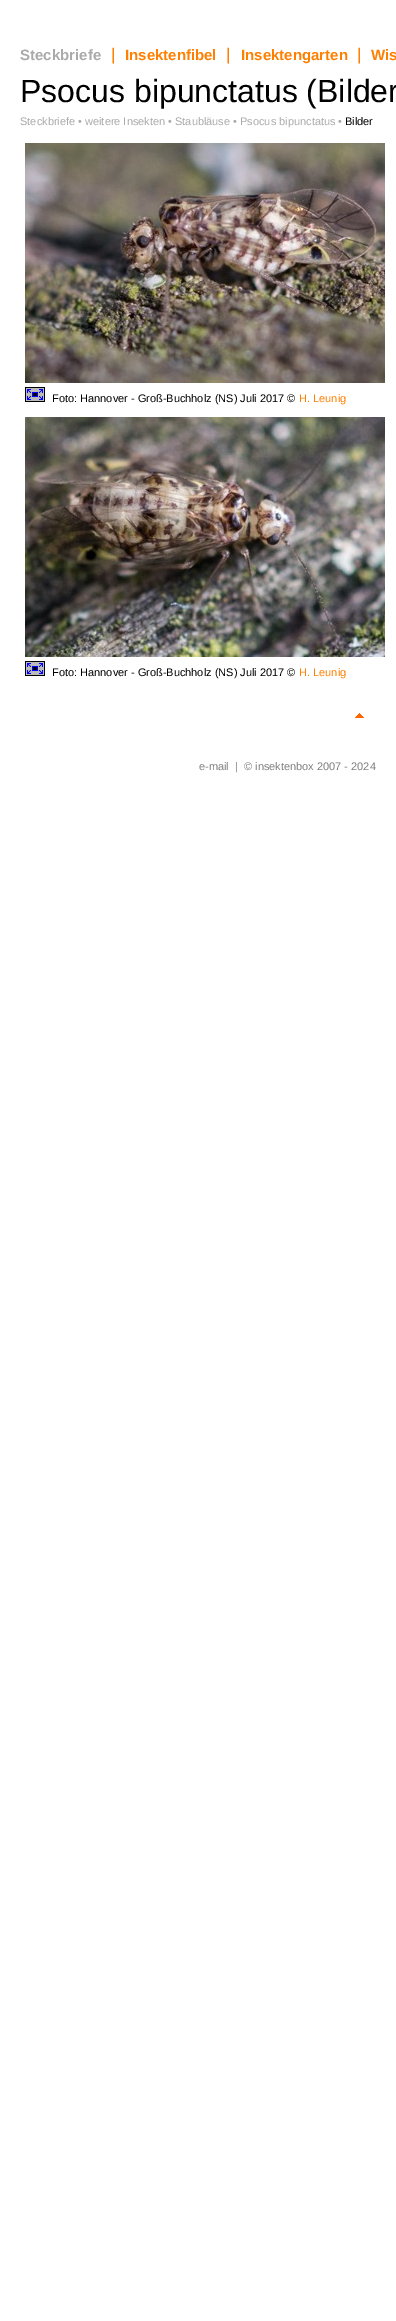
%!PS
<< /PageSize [396 2321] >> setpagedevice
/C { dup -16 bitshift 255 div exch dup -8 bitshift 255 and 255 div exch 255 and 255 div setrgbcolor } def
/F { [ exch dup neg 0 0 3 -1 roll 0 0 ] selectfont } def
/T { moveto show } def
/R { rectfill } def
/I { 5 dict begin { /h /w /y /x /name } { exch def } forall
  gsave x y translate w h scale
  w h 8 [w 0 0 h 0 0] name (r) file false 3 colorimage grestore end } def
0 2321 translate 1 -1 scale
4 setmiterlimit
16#FFFFFF C
0 0 396 2321 R
/LiberationSans-Bold 15 F
16#AAAAAA C
(Steckbriefe) 20 60 T
/LiberationSans-Regular 17 F
16#FF7F00 C
(|) 111 60 T
/LiberationSans-Bold 15 F
(Insektenfibel) 125 60 T
/LiberationSans-Regular 17 F
(|) 226 60 T
/LiberationSans-Bold 15 F
(Insektengarten) 241 60 T
/LiberationSans-Regular 17 F
(|) 357 60 T
/LiberationSans-Bold 15 F
(Wis) 371 60 T
/LiberationSans-Regular 32 F
16#000000 C
(Psocus bipunctatus \(Bilder) 20 102 T
/LiberationSans-Regular 11 F
16#AAAAAA C
(Steckbriefe • weitere Insekten • Staubläuse • Psocus bipunctatus •) 20 125 T
16#000000 C
(Bilder) 345 125 T
(1.rgb) 25 143 360 240 I
(2.rgb) 25 387 20 15 I
(Foto: Hannover - Groß-Buchholz \(NS\) Juli 2017 ©) 52 402 T
16#FF7F00 C
(H. Leunig) 299 402 T
(3.rgb) 25 417 360 240 I
(2.rgb) 25 661 20 15 I
16#000000 C
(Foto: Hannover - Groß-Buchholz \(NS\) Juli 2017 ©) 52 676 T
16#FF7F00 C
(H. Leunig) 299 676 T
(4.rgb) 355 713 9 5 I
16#7F7F7F C
(e-mail) 199 770 T
(|) 235 770 T
(© insektenbox 2007 - 2024) 244 770 T
showpage
